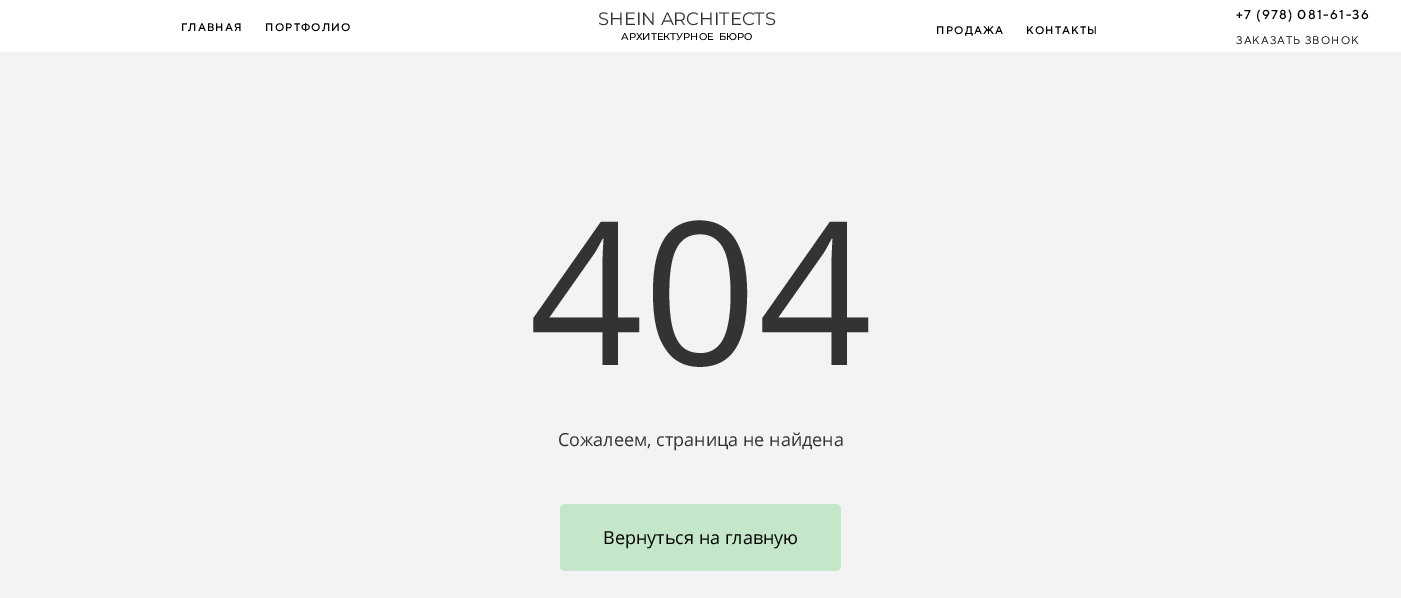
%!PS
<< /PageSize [1401 598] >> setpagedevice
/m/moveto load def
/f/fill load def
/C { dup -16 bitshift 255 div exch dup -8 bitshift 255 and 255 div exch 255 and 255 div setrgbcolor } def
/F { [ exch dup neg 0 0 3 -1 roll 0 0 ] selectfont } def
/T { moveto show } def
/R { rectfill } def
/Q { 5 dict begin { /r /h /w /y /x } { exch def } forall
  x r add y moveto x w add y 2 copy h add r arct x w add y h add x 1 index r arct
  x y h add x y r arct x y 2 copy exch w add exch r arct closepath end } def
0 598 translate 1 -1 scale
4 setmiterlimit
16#FFFFFF C
0 0 1401 598 R
/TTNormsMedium-Regular 11 F
16#000000 C
181 31 m 1.1 0 (ГЛАВНАЯ) ashow
265 31 m 1.1 0 (ПОРТФОЛИО) ashow
/Montserrat-Regular 18 F
16#333333 C
(SHEIN ARCHITECTS) 598 25 T
/Montserrat-Medium 10 F
16#000000 C
(АРХИТЕКТУРНОЕ) 621 40 T
(БЮРО) 719 40 T
/TTNormsMedium-Regular 11 F
936 34 m 1.1 0 (ПРОДАЖА) ashow
1026 34 m 1.1 0 (КОНТАКТЫ) ashow
/TTNormsMedium-Regular 13 F
1236 19 m 1.25 0 (+7 \(978\) 081-61-36) ashow
/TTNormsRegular-Regular 11 F
1236 44 m 1.1 0 (ЗАКАЗАТЬ ЗВОНОК) ashow
16#F3F3F3 C
0 52 1401 546 R
/OpenSans-Regular 200 F
16#333333 C
(404) 529 365 T
/OpenSans-Regular 18 F
(Сожалеем, страница не найдена) 558 446 T
16#C3E7C8 C
560 504 281 67 5 Q f
16#000000 C
(Вернуться на главную) 603 544 T
showpage
